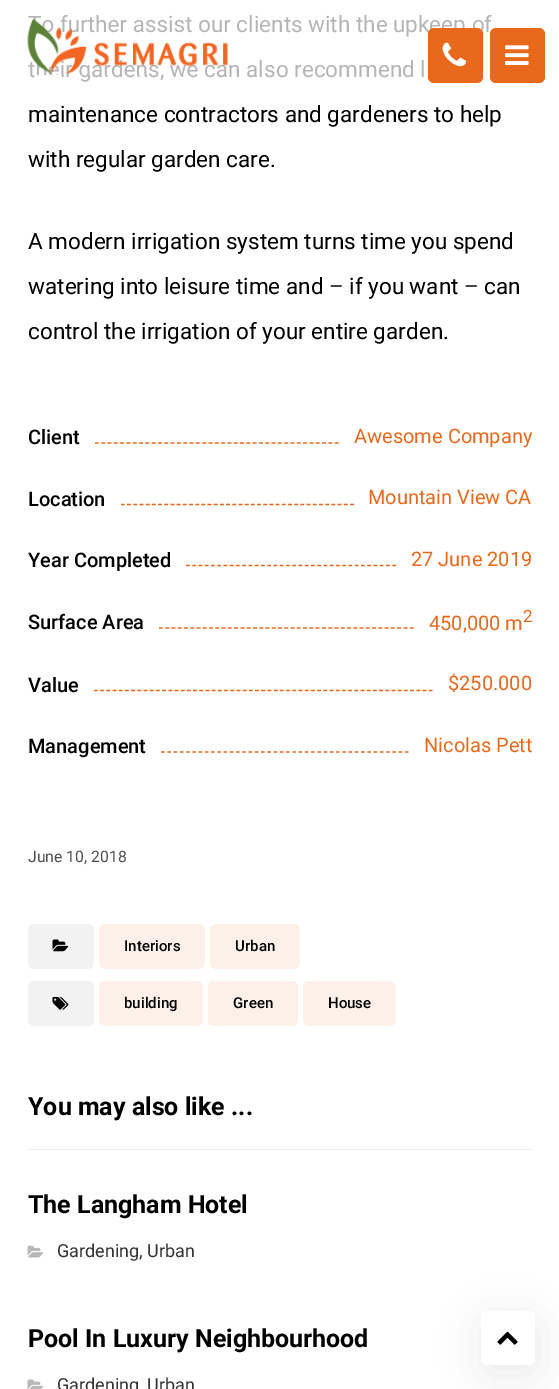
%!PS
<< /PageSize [559 1389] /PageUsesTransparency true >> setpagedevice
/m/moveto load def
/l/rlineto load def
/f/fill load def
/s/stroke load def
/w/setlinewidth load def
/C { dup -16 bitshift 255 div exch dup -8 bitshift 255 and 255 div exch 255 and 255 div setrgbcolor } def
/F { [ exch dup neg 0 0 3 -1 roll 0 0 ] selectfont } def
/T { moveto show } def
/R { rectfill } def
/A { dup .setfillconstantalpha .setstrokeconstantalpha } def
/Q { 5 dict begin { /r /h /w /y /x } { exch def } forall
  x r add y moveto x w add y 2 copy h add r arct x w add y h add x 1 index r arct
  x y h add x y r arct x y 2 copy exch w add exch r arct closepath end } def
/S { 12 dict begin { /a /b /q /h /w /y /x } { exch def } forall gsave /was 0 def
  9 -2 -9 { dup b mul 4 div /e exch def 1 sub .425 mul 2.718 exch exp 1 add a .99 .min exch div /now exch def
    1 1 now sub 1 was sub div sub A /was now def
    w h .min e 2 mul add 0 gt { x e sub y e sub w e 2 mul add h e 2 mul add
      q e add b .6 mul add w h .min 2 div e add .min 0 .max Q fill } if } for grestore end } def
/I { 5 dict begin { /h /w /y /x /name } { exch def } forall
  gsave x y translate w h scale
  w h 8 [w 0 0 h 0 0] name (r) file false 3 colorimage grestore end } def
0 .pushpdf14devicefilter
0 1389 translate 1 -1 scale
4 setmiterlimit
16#FFFFFF C
0 0 559 1389 R
/Roboto-Regular 22.5 F
16#B5B5B5 C
(To further assist our clients with the upkeep of) 28 32 T
(t) 28 77 T
(ir gardens, we can also recommend l) 60 77 T
16#000000 C
(maintenance contractors and gardeners to help) 28 122 T
(with regular garden care.) 28 167 T
(A modern irrigation system turns time you spend) 28 249 T
(watering into leisure time and – if you want – can) 28 294 T
(control the irrigation of your entire garden.) 28 339 T
/Roboto-Medium 20 F
(Client) 28 444 T
/Roboto-Regular 20 F
16#E8691C C
(Awesome Company) 354 443 T
1.2 w
[3.75 2.56] 0 setdash
95 443 m 244 0 l s
/Roboto-Medium 20 F
16#000000 C
(Location) 28 506 T
/Roboto-Regular 20 F
16#E8691C C
(Mountain View CA) 368 504 T
[3.75 2.44] 0 setdash
121 504.5 m 233 0 l s
/Roboto-Medium 20 F
16#000000 C
(Year Completed) 28 567 T
/Roboto-Regular 20 F
16#E8691C C
(27 June 2019) 411 566 T
[3.75 2.5] 0 setdash
186 565.5 m 210 0 l s
/Roboto-Medium 20 F
16#000000 C
(Surface Area) 28 629 T
/Roboto-Regular 20 F
16#E8691C C
(450,000 m) 429 630 T
/Roboto-Regular 17 F
(2) 523 622 T
[3.75 2.52] 0 setdash
159 628 m 255 0 l s
/Roboto-Medium 20 F
16#000000 C
(Value) 28 692 T
/Roboto-Regular 20 F
16#E8691C C
($250.000) 448 690 T
[3.75 2.45] 0 setdash
94 690.5 m 338.5 0 l s
/Roboto-Medium 20 F
16#000000 C
(Management) 28 753 T
/Roboto-Regular 20 F
16#E8691C C
(Nicolas Pett) 424 752 T
[3.75 2.5] 0 setdash
161 752 m 248 0 l s
/Roboto-Regular 15.75 F
16#4D4D4D C
(June 10, 2018) 28 862 T
16#F2F2F2 C
28 924 66 45 6 Q f
(1.rgb) 52 939 17 13 I
16#FDF0E8 C
99 924 106 45 6 Q f
/Roboto-Medium 15 F
16#000000 C
(Interiors) 124 951 T
16#FDF0E8 C
210 924 90 45 6 Q f
16#000000 C
(Urban) 235 951 T
16#F2F2F2 C
28 981 66 45 6 Q f
(2.rgb) 52 996 17 14 I
16#FDF0E8 C
99 981 104 45 6 Q f
16#000000 C
(building) 124 1008 T
16#FDF0E8 C
208 981 90 45 6 Q f
16#000000 C
(Green) 233 1008 T
16#FDF0E8 C
303 981 93 45 6 Q f
16#000000 C
(House) 328 1008 T
16#EDEDED C
28 1149 505 1 R
/Roboto-Bold 25 F
16#000000 C
(You may also like ...) 28 1115 T
(The Langham Hotel) 28 1213 T
(3.rgb) 27 1245 17 13 I
/Roboto-Regular 18 F
16#333333 C
(Gardening, Urban) 57 1257 T
/Roboto-Bold 25 F
16#000000 C
(Pool In Luxury Neighbourhood) 28 1347 T
(4.rgb) 27 1379 17 10 I
/Roboto-Regular 18 F
16#333333 C
(Gardening) 57 1391 T
(Urban) 147 1391 T
(5.rgb) 27 18 201 57 I
16#E8691C C
428 28 55 55 6 Q f
(6.rgb) 442 42 25 25 I
490 28 55 55 6 Q f
(7.rgb) 505 45 24 20 I
16#000000 C
483 1321 53 54 6 20 .08 S
16#FFFFFF C
481 1311 54 54 6 Q f
(8.rgb) 497 1331 21 14 I
.poppdf14devicefilter showpage
